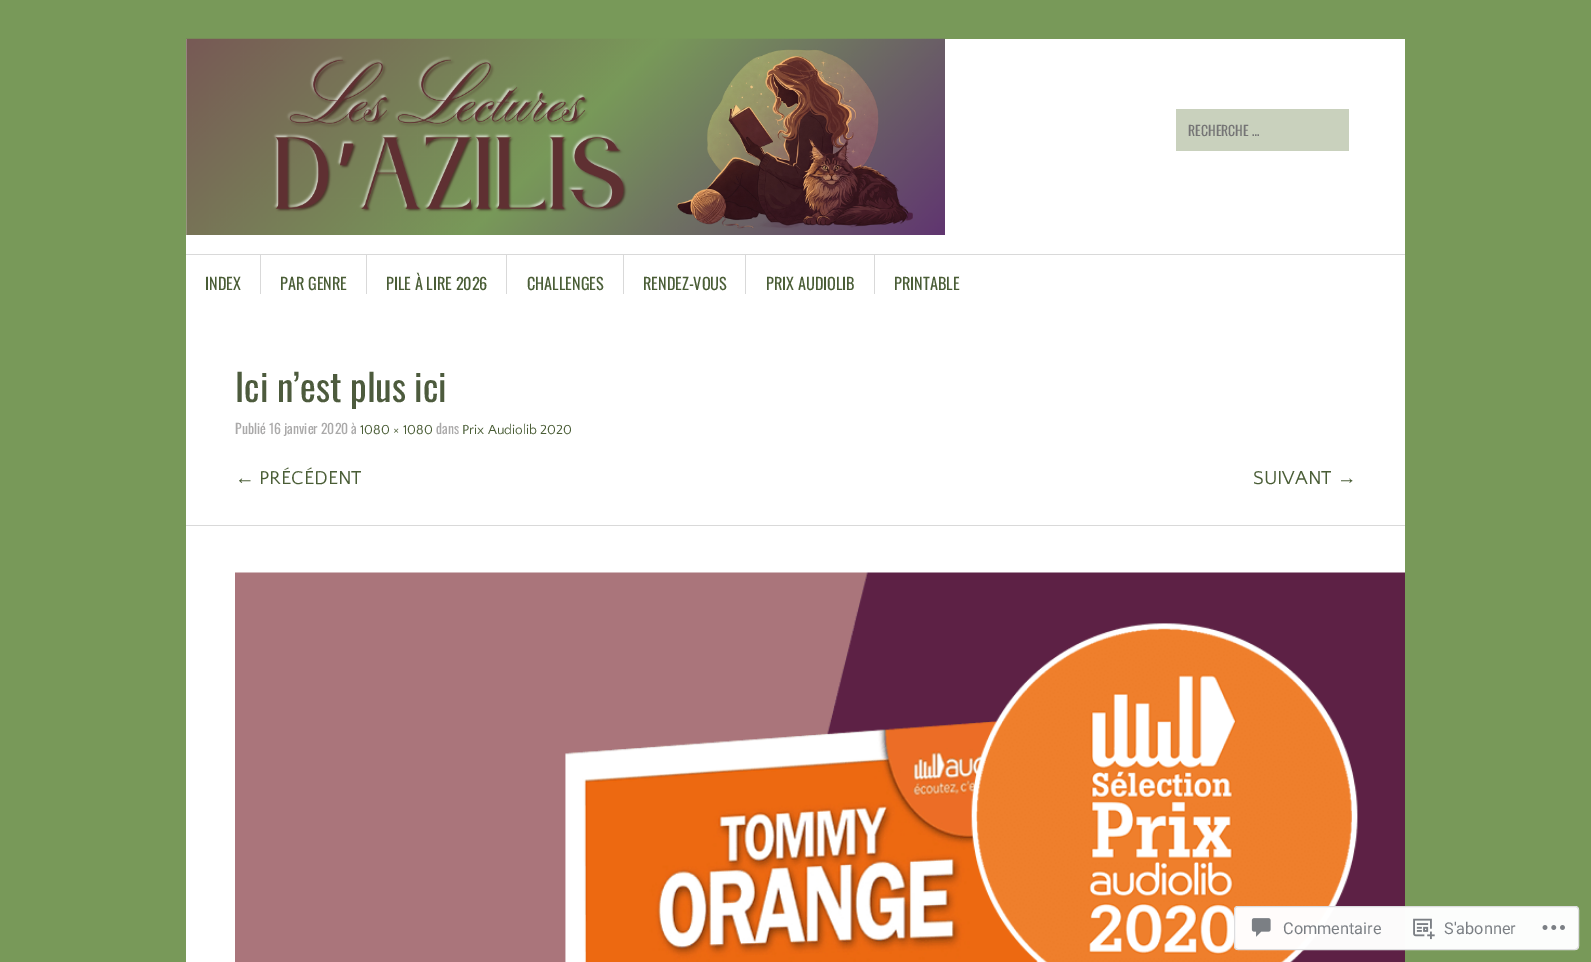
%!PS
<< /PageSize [1591 962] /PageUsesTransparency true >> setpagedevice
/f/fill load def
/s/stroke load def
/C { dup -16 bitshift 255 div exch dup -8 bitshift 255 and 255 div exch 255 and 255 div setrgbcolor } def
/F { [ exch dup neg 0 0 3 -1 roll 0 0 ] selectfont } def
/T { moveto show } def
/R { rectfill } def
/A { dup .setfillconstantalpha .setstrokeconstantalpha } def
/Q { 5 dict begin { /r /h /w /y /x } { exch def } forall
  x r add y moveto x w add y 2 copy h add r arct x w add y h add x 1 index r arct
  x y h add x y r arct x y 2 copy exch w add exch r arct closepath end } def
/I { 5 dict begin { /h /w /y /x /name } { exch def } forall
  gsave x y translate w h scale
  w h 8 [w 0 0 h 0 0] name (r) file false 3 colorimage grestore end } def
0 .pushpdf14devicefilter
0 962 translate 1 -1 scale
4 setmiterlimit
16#789959 C
0 0 1591 962 R
16#FFFFFF C
186 39 1219 923 R
(1.rgb) 186 38 759 197 I
16#C9D1BD C
1176 109 173 42 R
/Oswald-Regular 13.75 F
16#757575 C
(RECHERCHE …) 1188 136 T
16#D9D9D9 C
186 254 1219 1 R
/Oswald-Regular 16.25 F
16#4A5D36 C
(INDEX) 205 290 T
16#D9D9D9 C
260 255 1 39 R
16#4A5D36 C
(PAR GENRE) 280 290 T
16#D9D9D9 C
366 255 1 39 R
16#4A5D36 C
(PILE À LIRE 2026) 386 290 T
16#D9D9D9 C
506 255 1 39 R
16#4A5D36 C
(CHALLENGES) 527 290 T
16#D9D9D9 C
623 255 1 39 R
16#4A5D36 C
(RENDEZ-VOUS) 643 290 T
16#D9D9D9 C
745 255 1 39 R
16#4A5D36 C
(PRIX AUDIOLIB) 766 290 T
16#D9D9D9 C
874 255 1 39 R
16#4A5D36 C
(PRINTABLE) 894 290 T
16#D9D9D9 C
186 525 1219 1 R
/Oswald-Regular 37.5 F
16#4D5B3D C
(Ici n’est plus ici) 235 402 T
/Oswald-Regular 13.75 F
16#AAA9A9 C
(Publié 16 janvier 2020 à) 235 434 T
/QuattrocentoSans-Regular 13.75 F
16#4A5D36 C
(1080 × 1080) 360 434 T
/Oswald-Regular 13.75 F
16#AAA9A9 C
(dans) 436 434 T
/QuattrocentoSans-Regular 13.75 F
16#4A5D36 C
(Prix Audiolib 2020) 462 434 T
/LiberationSans-Regular 19.5 F
(←) 235 484 T
/QuattrocentoSans-Regular 19.5 F
(PRÉCÉDENT) 259 484 T
(SUIVANT) 1253 484 T
/LiberationSans-Regular 19.5 F
(→) 1337 484 T
(2.rgb) 235 572 1170 390 I
0.98 A
16#FFFFFF C
1234 906 345 44 4 Q f
16#DCDCDE C
1234.5 906.5 344 43 3.5 Q s
1 A
(3.rgb) 1251 918 20 19 I
/Roboto-Regular 16.25 F
16#7B7F84 C
(Commentaire) 1283 934 T
(4.rgb) 1413 918 22 22 I
(S'abonner) 1444 934 T
(5.rgb) 1542 925 23 5 I
.poppdf14devicefilter showpage
